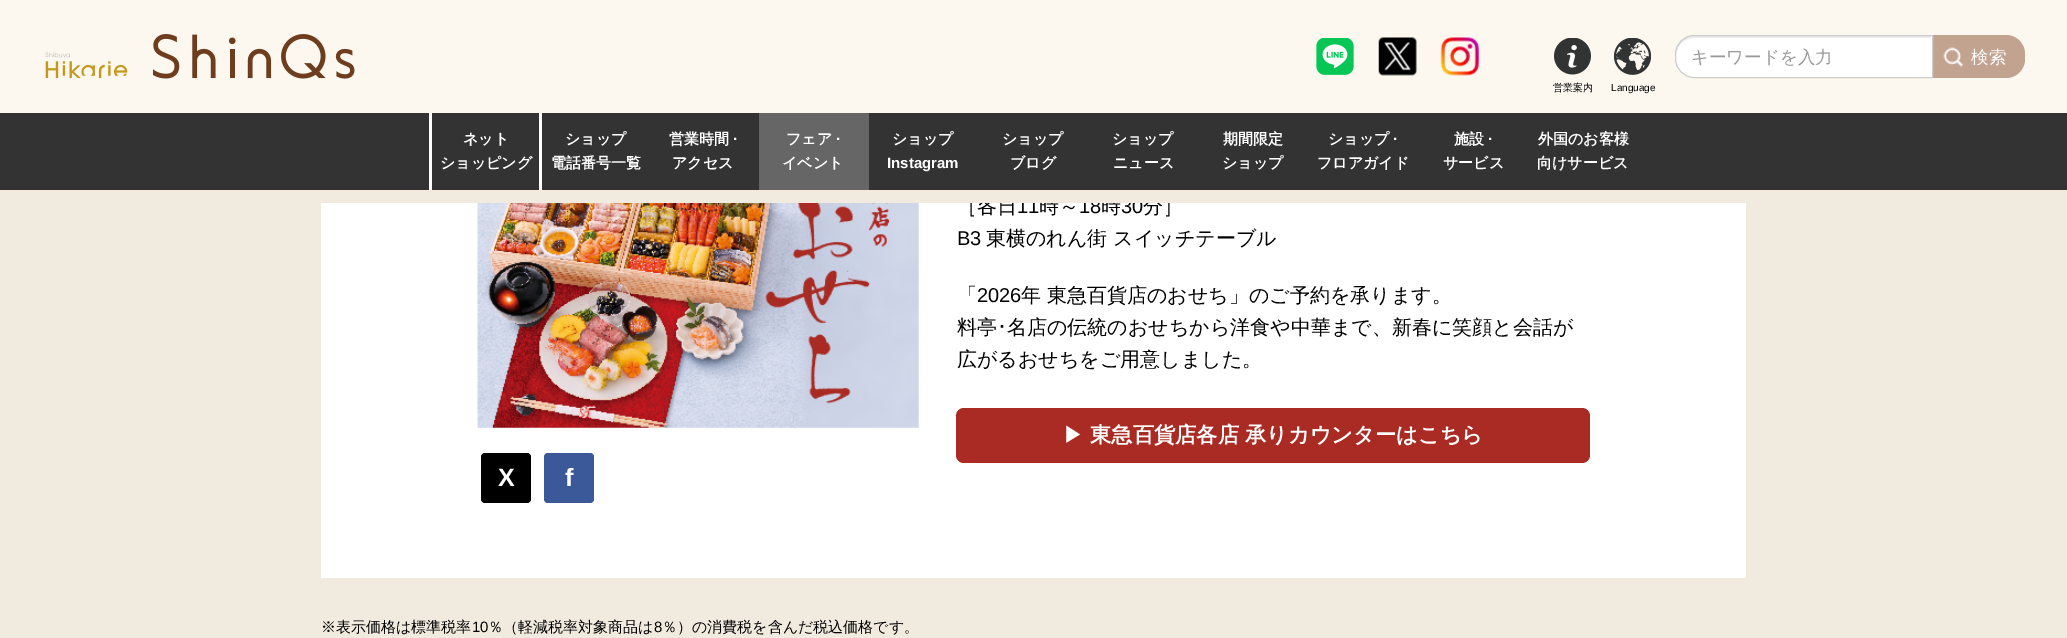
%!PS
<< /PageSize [2067 638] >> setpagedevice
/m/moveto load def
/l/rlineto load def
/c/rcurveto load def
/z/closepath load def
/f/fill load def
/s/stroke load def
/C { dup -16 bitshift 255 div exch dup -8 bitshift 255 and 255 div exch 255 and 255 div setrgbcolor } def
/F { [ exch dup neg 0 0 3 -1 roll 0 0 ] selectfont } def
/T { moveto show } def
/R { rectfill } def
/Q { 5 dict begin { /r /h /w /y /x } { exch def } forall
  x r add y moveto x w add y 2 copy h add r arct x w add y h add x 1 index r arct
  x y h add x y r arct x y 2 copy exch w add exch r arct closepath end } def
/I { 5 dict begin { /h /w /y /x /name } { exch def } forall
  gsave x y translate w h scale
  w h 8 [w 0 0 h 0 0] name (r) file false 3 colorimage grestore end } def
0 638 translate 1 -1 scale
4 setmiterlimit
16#F1EADE C
0 0 2067 638 R
16#FFFFFF C
321 203 1425 375 R
/WenQuanYiZenHei-Medium 20 F
16#000000 C
(［各日) 957 213 T
/LiberationSans-Regular 20 F
(11) 1017 213 T
/WenQuanYiZenHei-Medium 20 F
(時～) 1039 213 T
/LiberationSans-Regular 20 F
(18) 1079 213 T
/WenQuanYiZenHei-Medium 20 F
(時) 1101 213 T
/LiberationSans-Regular 20 F
(30) 1121 213 T
/WenQuanYiZenHei-Medium 20 F
(分］) 1143 213 T
16#F1EADF C
970 196 200 7 R
16#FCF8F0 C
0 0 2067 113 R
(1.rgb) 45 34 310 45 I
(2.rgb) 1316 38 38 37 I
(3.rgb) 1378 37 39 39 I
(4.rgb) 1440 37 39 39 I
16#C2A38F C
1931 35 m 75 0 l 10.5 0 19 8.5 19 19 c 0 5 l 0 10.5 -8.5 19 -19 19 c -75 0 l z f
16#FFFFFF C
1694 35 m 239 0 l 0 43 l -239 0 l -10.5 0 -19 -8.5 -19 -19 c 0 -5 l 0 -10.5 8.5 -19 19 -19 c z f
16#ECECEC C
1694 38 m 237 0 l 0 -2 l -237 0 l -14 0 -19 12 -18 24 c -1 -11 5 -22 18 -22 c z f
16#CCCCCC C
1694 35.5 m 238.5 0 l 0 42 l -238.5 0 l -10 0 -18.5 -8.5 -18.5 -18.5 c 0 -5 l 0 -10 8.5 -18.5 18.5 -18.5 c z s
/WenQuanYiZenHei-Medium 17.5 F
16#999999 C
(キーワードを入力) 1691 63 T
(5.rgb) 1943 47 20 20 I
16#FFFFFF C
(検索) 1971 63 T
(6.rgb) 1554 38 37 37 I
/WenQuanYiZenHei-Medium 10 F
16#000000 C
(営業案内) 1553 91 T
(7.rgb) 1614 38 37 37 I
/LiberationSans-Regular 10 F
(Language) 1611 91 T
16#333333 C
0 113 2067 77 R
16#FFFFFF C
429 113 3 77 R
/WenQuanYiZenHei-Bold 15 F
(ネット) 463 144 T
(ショッピング) 440 168 T
539 113 3 77 R
(ショップ) 565 144 T
(電話番号一覧) 551 168 T
(営業時間) 669 144 T
/LiberationSans-Bold 15 F
(·) 733 144 T
/WenQuanYiZenHei-Bold 15 F
(アクセス) 672 168 T
16#666666 C
759 113 110 77 R
16#FFFFFF C
(フェア) 786 144 T
/LiberationSans-Bold 15 F
(·) 836 144 T
/WenQuanYiZenHei-Bold 15 F
(イベント) 782 168 T
(ショップ) 892 144 T
/LiberationSans-Bold 15 F
(Instagram) 887 168 T
/WenQuanYiZenHei-Bold 15 F
(ショップ) 1002 144 T
(ブログ) 1010 168 T
(ショップ) 1112 144 T
(ニュース) 1113 168 T
(期間限定) 1223 144 T
(ショップ) 1222 168 T
(ショップ) 1328 144 T
/LiberationSans-Bold 15 F
(·) 1393 144 T
/WenQuanYiZenHei-Bold 15 F
(フロアガイド) 1317 168 T
(施設) 1454 144 T
/LiberationSans-Bold 15 F
(·) 1488 144 T
/WenQuanYiZenHei-Bold 15 F
(サービス) 1443 168 T
(外国のお客様) 1538 144 T
(向けサービス) 1537 168 T
/LiberationSans-Regular 20 F
16#000000 C
(B3) 957 245 T
/WenQuanYiZenHei-Medium 20 F
(東横のれん街 スイッチテーブル) 986 245 T
(「) 957 302 T
/LiberationSans-Regular 20 F
(2026) 977 302 T
/WenQuanYiZenHei-Medium 20 F
(年 東急百貨店のおせち」のご予約を承ります。) 1021 302 T
(料亭) 957 334 T
/IPAPGothic-Regular 20 F
(･) 997 334 T
/WenQuanYiZenHei-Medium 20 F
(名店の伝統のおせちから洋食や中華まで、新春に笑顔と会話が) 1007 334 T
(広がるおせちをご用意しました。) 957 366 T
16#AA2B23 C
956 408 634 55 8 Q f
/WenQuanYiZenHei-Medium 21.25 F
16#FFFFFF C
(▶) 1063 442 T
/WenQuanYiZenHei-Bold 21.25 F
(東急百貨店各店) 1090 442 T
(承りカウンターはこちら) 1245 442 T
(8.rgb) 477 203 442 225 I
16#000000 C
481 453 50 50 4 Q f
/LiberationSans-Bold 25 F
16#FFFFFF C
(X) 498 486 T
16#3B5998 C
544 453 50 50 4 Q f
16#FFFFFF C
(f) 565 486 T
/WenQuanYiZenHei-Medium 15 F
16#000000 C
(※表示価格は標準税率) 321 632 T
/LiberationSans-Regular 15 F
(10) 472 632 T
/WenQuanYiZenHei-Medium 15 F
(％（軽減税率対象商品は) 488 632 T
/LiberationSans-Regular 15 F
(8) 654 632 T
/WenQuanYiZenHei-Medium 15 F
(％）の消費税を含んだ税込価格です。) 662 632 T
showpage
